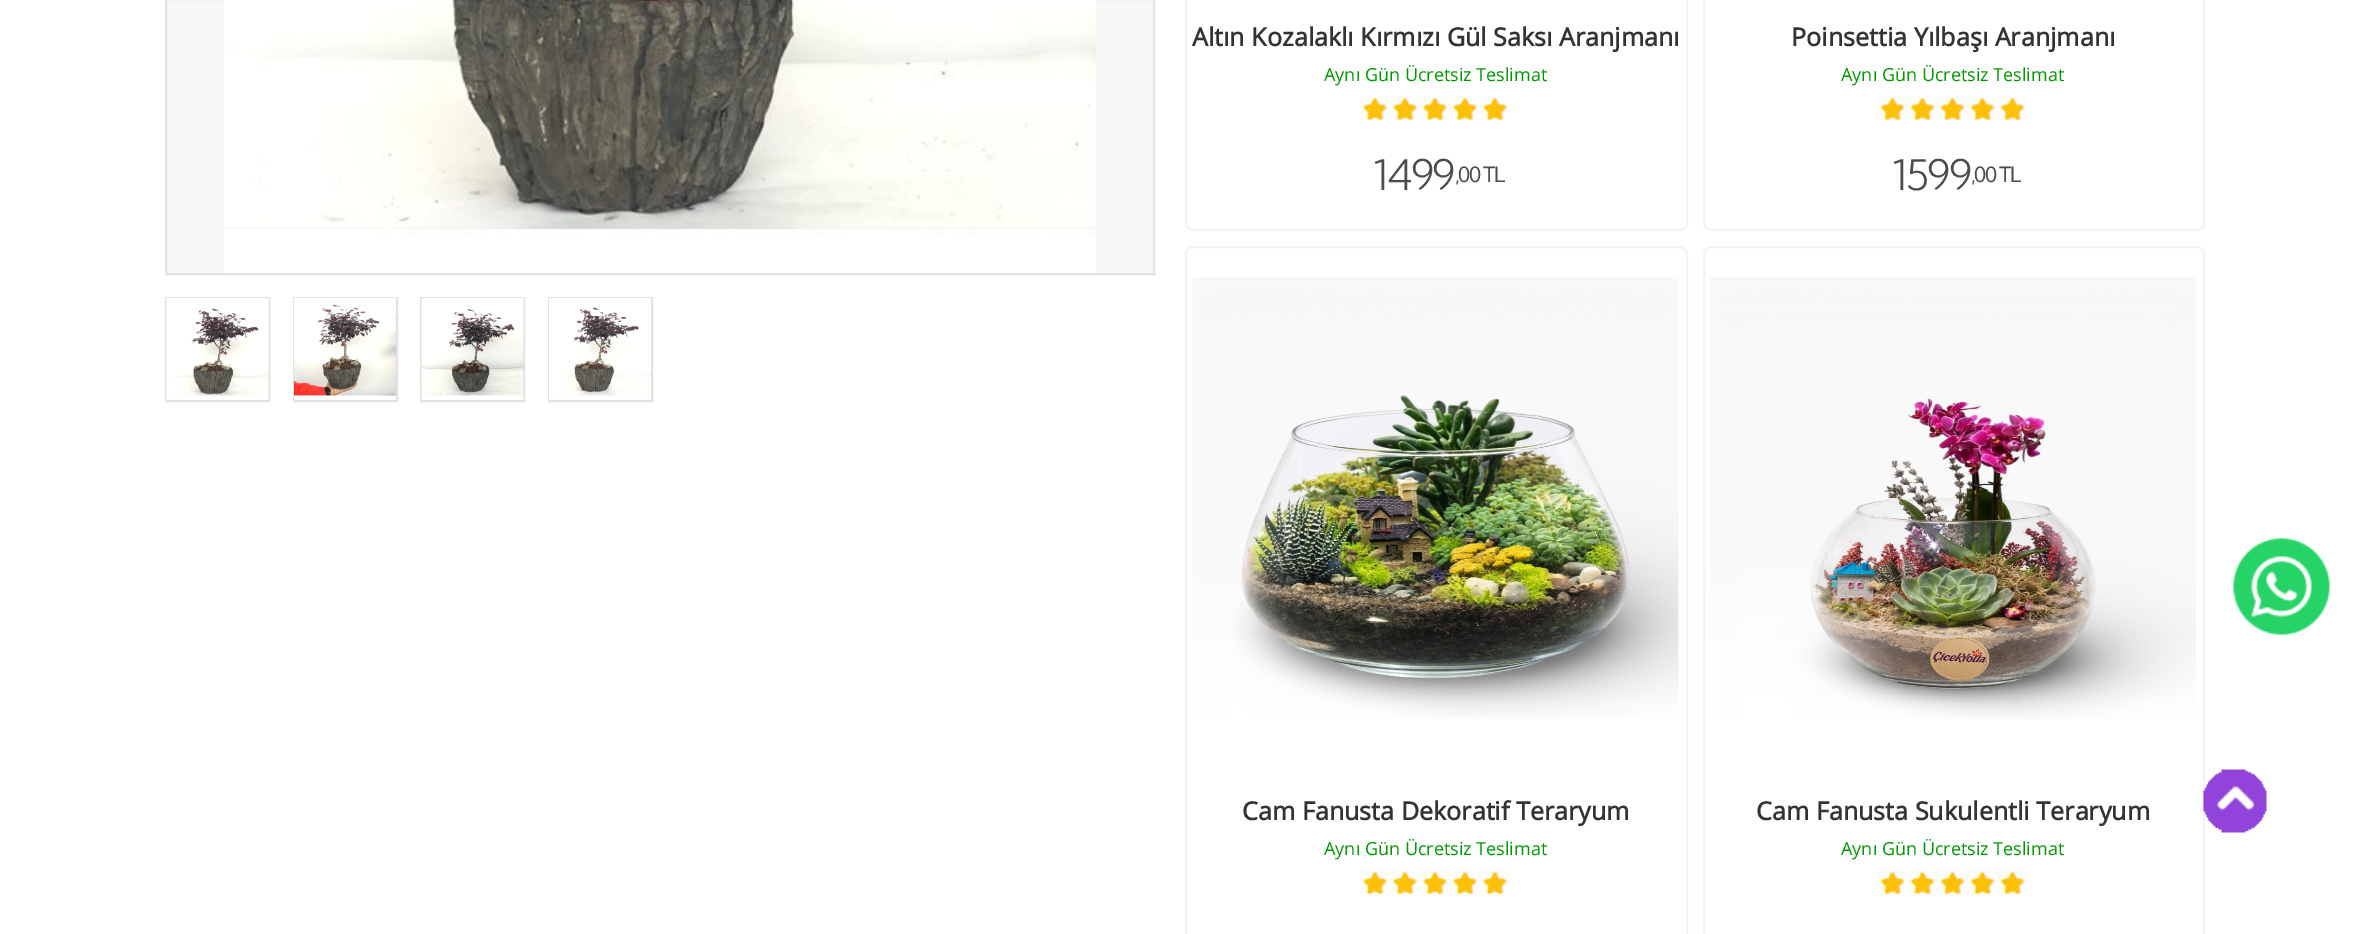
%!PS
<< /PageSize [2353 934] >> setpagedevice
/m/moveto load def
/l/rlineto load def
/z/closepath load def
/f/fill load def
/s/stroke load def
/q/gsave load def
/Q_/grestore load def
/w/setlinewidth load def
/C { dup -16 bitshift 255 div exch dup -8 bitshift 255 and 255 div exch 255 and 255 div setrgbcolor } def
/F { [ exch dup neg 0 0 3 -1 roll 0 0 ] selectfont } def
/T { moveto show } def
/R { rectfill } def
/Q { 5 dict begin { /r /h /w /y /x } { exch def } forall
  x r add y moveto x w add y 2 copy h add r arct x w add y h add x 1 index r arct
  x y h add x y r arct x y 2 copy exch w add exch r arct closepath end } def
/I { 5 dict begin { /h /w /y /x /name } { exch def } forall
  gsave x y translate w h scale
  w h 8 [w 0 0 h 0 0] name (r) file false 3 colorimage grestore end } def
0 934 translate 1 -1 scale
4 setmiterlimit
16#FFFFFF C
0 0 2353 934 R
16#F7F7F7 C
166 -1 m 988 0 l 0 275 l -988 0 l z q f Q_
16#E2E2E2 C
2 w
s
(1.rgb) 224 0 872 273 I
166 298 103 103 rectstroke
(2.rgb) 166 298 103 102 I
294 298 103 103 rectstroke
(3.rgb) 294 298 102 102 I
421 298 103 103 rectstroke
(4.rgb) 421 298 103 102 I
549 298 103 103 rectstroke
(5.rgb) 549 298 102 102 I
16#F3F3F3 C
1186 -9 501 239 7 Q s
/OpenSans-Bold 25.1 F
16#333333 C
(Altın Kozalaklı Kırmızı Gül Saksı Aranjmanı) 1192 46 T
/OpenSans-Regular 18 F
16#009900 C
(Aynı Gün Ücretsiz Teslimat) 1324 81 T
(6.rgb) 1360 95 151 27 I
/KumbhSans-Light 42 F
16#4E4B4F C
1373 190 m -1.5 0 (1499) ashow
/KumbhSans-Regular 21 F
1455 182 m -1.5 0 (,00 TL) ashow
16#F3F3F3 C
1704 -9 500 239 7 Q s
/OpenSans-Bold 25.1 F
16#333333 C
(Poinsettia Yılbaşı Aranjmanı) 1791 46 T
/OpenSans-Regular 18 F
16#009900 C
(Aynı Gün Ücretsiz Teslimat) 1841 81 T
(7.rgb) 1878 95 150 27 I
/KumbhSans-Light 42 F
16#4E4B4F C
1892 190 m -1.5 0 (1599) ashow
/KumbhSans-Regular 21 F
1971 182 m -1.5 0 (,00 TL) ashow
16#F3F3F3 C
1186 247 501 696 7 Q s
(8.rgb) 1192 277 487 442 I
/OpenSans-Bold 25.1 F
16#333333 C
(Cam Fanusta Dekoratif Teraryum) 1242 820 T
/OpenSans-Regular 18 F
16#009900 C
(Aynı Gün Ücretsiz Teslimat) 1324 855 T
(6.rgb) 1360 869 151 27 I
16#F3F3F3 C
1704 247 500 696 7 Q s
(9.rgb) 1710 277 486 443 I
/OpenSans-Bold 25.1 F
16#333333 C
(Cam Fanusta Sukulentli Teraryum) 1756 820 T
/OpenSans-Regular 18 F
16#009900 C
(Aynı Gün Ücretsiz Teslimat) 1841 855 T
(7.rgb) 1878 869 150 27 I
(10.rgb) 2233 538 97 97 I
(11.rgb) 2203 769 64 64 I
showpage
